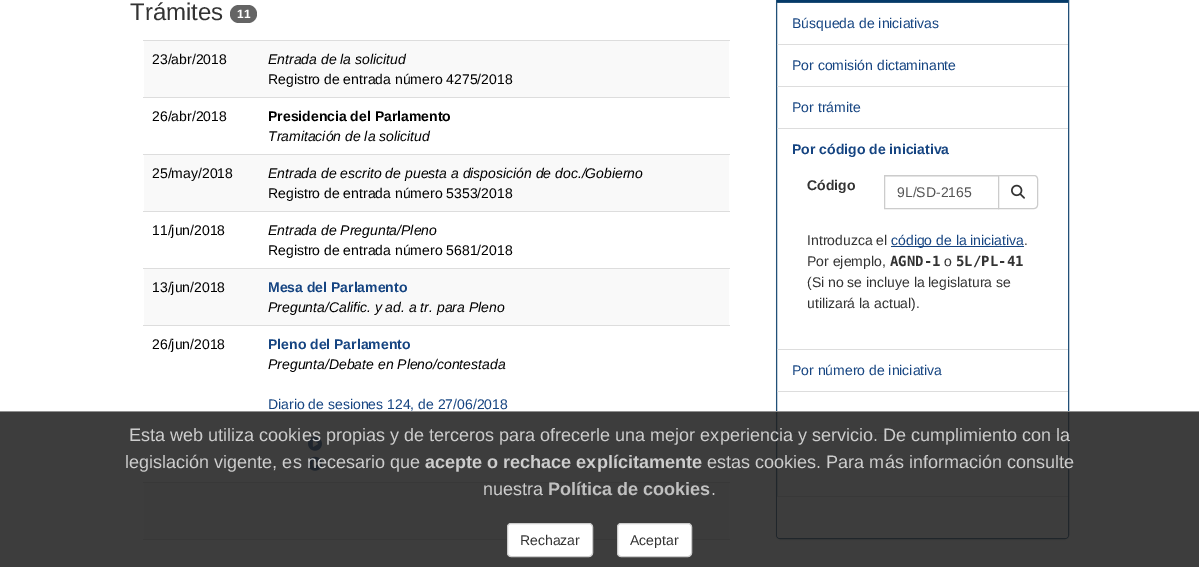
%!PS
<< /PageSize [1199 567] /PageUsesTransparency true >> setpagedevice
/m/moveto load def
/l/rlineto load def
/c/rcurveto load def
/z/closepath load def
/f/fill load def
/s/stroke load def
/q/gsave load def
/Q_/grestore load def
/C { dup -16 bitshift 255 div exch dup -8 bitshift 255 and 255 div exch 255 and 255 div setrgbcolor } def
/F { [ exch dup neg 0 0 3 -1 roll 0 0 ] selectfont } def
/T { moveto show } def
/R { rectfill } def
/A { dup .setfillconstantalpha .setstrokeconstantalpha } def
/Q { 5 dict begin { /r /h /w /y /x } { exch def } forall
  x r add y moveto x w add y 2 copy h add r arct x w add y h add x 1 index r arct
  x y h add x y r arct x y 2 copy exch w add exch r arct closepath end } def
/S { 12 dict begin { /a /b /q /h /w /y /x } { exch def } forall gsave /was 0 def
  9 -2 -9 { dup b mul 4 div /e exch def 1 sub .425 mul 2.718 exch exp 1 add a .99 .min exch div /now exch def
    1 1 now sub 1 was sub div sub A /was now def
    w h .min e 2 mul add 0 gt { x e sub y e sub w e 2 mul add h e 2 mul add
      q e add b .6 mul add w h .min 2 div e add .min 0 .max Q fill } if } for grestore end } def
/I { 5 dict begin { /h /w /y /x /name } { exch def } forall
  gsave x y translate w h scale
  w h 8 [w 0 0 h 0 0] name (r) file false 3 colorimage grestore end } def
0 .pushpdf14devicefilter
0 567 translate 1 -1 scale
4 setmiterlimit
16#FFFFFF C
0 0 1199 567 R
/LiberationSans-Regular 24 F
16#333333 C
(Trámites) 130 20 T
16#646464 C
230 5 27 18 9 Q f
/LiberationSans-Bold 12 F
16#FFFFFF C
(11) 237 18 T
16#F9F9F9 C
144 41 585 56 R
/LiberationSans-Regular 14 F
16#000000 C
(23/abr/2018) 152 64 T
16#DDDDDD C
143 40 587 1 R
/LiberationSans-Italic 14 F
16#000000 C
(Entrada de la solicitud) 268 64 T
/LiberationSans-Regular 14 F
(Registro de entrada número 4275/2018) 268 84 T
(26/abr/2018) 152 121 T
16#DDDDDD C
143 97 587 1 R
/LiberationSans-Bold 14 F
16#000000 C
(Presidencia del Parlamento) 268 121 T
/LiberationSans-Italic 14 F
(Tramitación de la solicitud) 268 141 T
16#F9F9F9 C
144 155 585 56 R
/LiberationSans-Regular 14 F
16#000000 C
(25/may/2018) 152 178 T
16#DDDDDD C
143 154 587 1 R
/LiberationSans-Italic 14 F
16#000000 C
(Entrada de escrito de puesta a disposición de doc./Gobierno) 268 178 T
/LiberationSans-Regular 14 F
(Registro de entrada número 5353/2018) 268 198 T
(11/jun/2018) 152 235 T
16#DDDDDD C
143 211 587 1 R
/LiberationSans-Italic 14 F
16#000000 C
(Entrada de Pregunta/Pleno) 268 235 T
/LiberationSans-Regular 14 F
(Registro de entrada número 5681/2018) 268 255 T
16#F9F9F9 C
144 269 585 56 R
16#000000 C
(13/jun/2018) 152 292 T
16#DDDDDD C
143 268 587 1 R
/LiberationSans-Bold 14 F
16#154481 C
(Mesa del Parlamento) 268 292 T
/LiberationSans-Italic 14 F
16#000000 C
(Pregunta/Calific. y ad. a tr. para Pleno) 268 312 T
/LiberationSans-Regular 14 F
(26/jun/2018) 152 349 T
16#DDDDDD C
143 325 587 1 R
/LiberationSans-Bold 14 F
16#154481 C
(Pleno del Parlamento) 268 349 T
/LiberationSans-Italic 14 F
16#000000 C
(Pregunta/Debate en Pleno/contestada) 268 369 T
/LiberationSans-Regular 14 F
16#154481 C
(Diario de sesiones 124, de 27/06/2018) 268 409 T
(1.rgb) 308 436 14 15 I
(1.rgb) 308 456 14 15 I
16#F9F9F9 C
144 483 585 56 R
16#DDDDDD C
143 482 587 1 R
143 539 587 1 R
16#000000 C
776 -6 293 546 4 .5 .05 S
16#FFFFFF C
776.5 -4.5 292 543 3.5 Q q f Q_
16#215078 C
s
16#043A68 C
777 0 291 2 R
16#215078 C
777 2 291 1 R
16#DDDDDD C
777 44 291 1 R
16#154481 C
(Búsqueda de iniciativas) 792 28 T
16#DDDDDD C
777 86 291 1 R
16#154481 C
(Por comisión dictaminante) 792 70 T
16#DDDDDD C
777 128 291 1 R
16#154481 C
(Por trámite) 792 112 T
16#DDDDDD C
777 349 291 1 R
/LiberationSans-Bold 14 F
16#154481 C
(Por código de iniciativa) 792 154 T
16#333333 C
(Código) 807 190 T
16#ECECEC C
885 176 113 1 R
16#CCCCCC C
884.5 175.5 114 33 rectstroke
/LiberationSans-Regular 14 F
16#555555 C
(9L/SD-2165) 897 197 T
16#FFFFFF C
998.5 175.5 m 35.5 0 l 2 0 3.5 1.5 3.5 3.5 c 0 26 l 0 2 -1.5 3.5 -3.5 3.5 c -35.5 0 l z q f Q_
16#CCCCCC C
s
(2.rgb) 1011 184 14 15 I
16#333333 C
(Introduzca el) 807 245 T
16#154481 C
891 246 133 1 R
(código de la iniciativa) 891 245 T
16#333333 C
(.) 1024 245 T
(Por ejemplo,) 807 266 T
/DejaVuSansMono-Bold 14 F
(AGND-1) 890 266 T
/LiberationSans-Regular 14 F
(o) 944 266 T
/DejaVuSansMono-Bold 14 F
(5L/PL-41) 956 266 T
/LiberationSans-Regular 14 F
(\(Si no se incluye la legislatura se) 807 287 T
(utilizará la actual\).) 807 308 T
16#DDDDDD C
777 391 291 1 R
16#154481 C
(Por número de iniciativa) 792 375 T
16#DDDDDD C
777 433 291 1 R
16#FFFFFF C
777 496 m 291 0 l 0 39 l 0 1.5 -1.5 3 -3 3 c -285 0 l -1.5 0 -3 -1.5 -3 -3 c z f
16#DDDDDD C
777 496 291 1 R
0.87 A
16#202020 C
0 412 1199 155 R
1 A
16#909090 C
0 411 1199 1 R
/LiberationSans-Regular 18.05 F
16#CDCDCD C
(Esta web utiliza cookies propias y de terceros para) 129 441 T
(ofrecerle una mejor experiencia y servicio. De cumplimiento con la) 540 441 T
(legislación vigente, es necesario que) 125 468 T
/LiberationSans-Bold 18.05 F
(acepte o rechace explícitamente) 425 468 T
/LiberationSans-Regular 18.05 F
(estas cookies. Para más información consulte) 707 468 T
(nuestra) 483 495 T
/LiberationSans-Bold 18.05 F
16#C0C0C0 C
(Política de cookies) 548 495 T
/LiberationSans-Regular 18.05 F
16#CDCDCD C
(.) 711 495 T
16#FFFFFF C
507.5 523.5 85 33 3.5 Q q f Q_
16#CCCCCC C
s
/LiberationSans-Regular 14 F
16#333333 C
(Rechazar) 520 545 T
16#FFFFFF C
617.5 523.5 74 33 3.5 Q q f Q_
16#CCCCCC C
s
16#333333 C
(Aceptar) 630 545 T
.poppdf14devicefilter showpage
